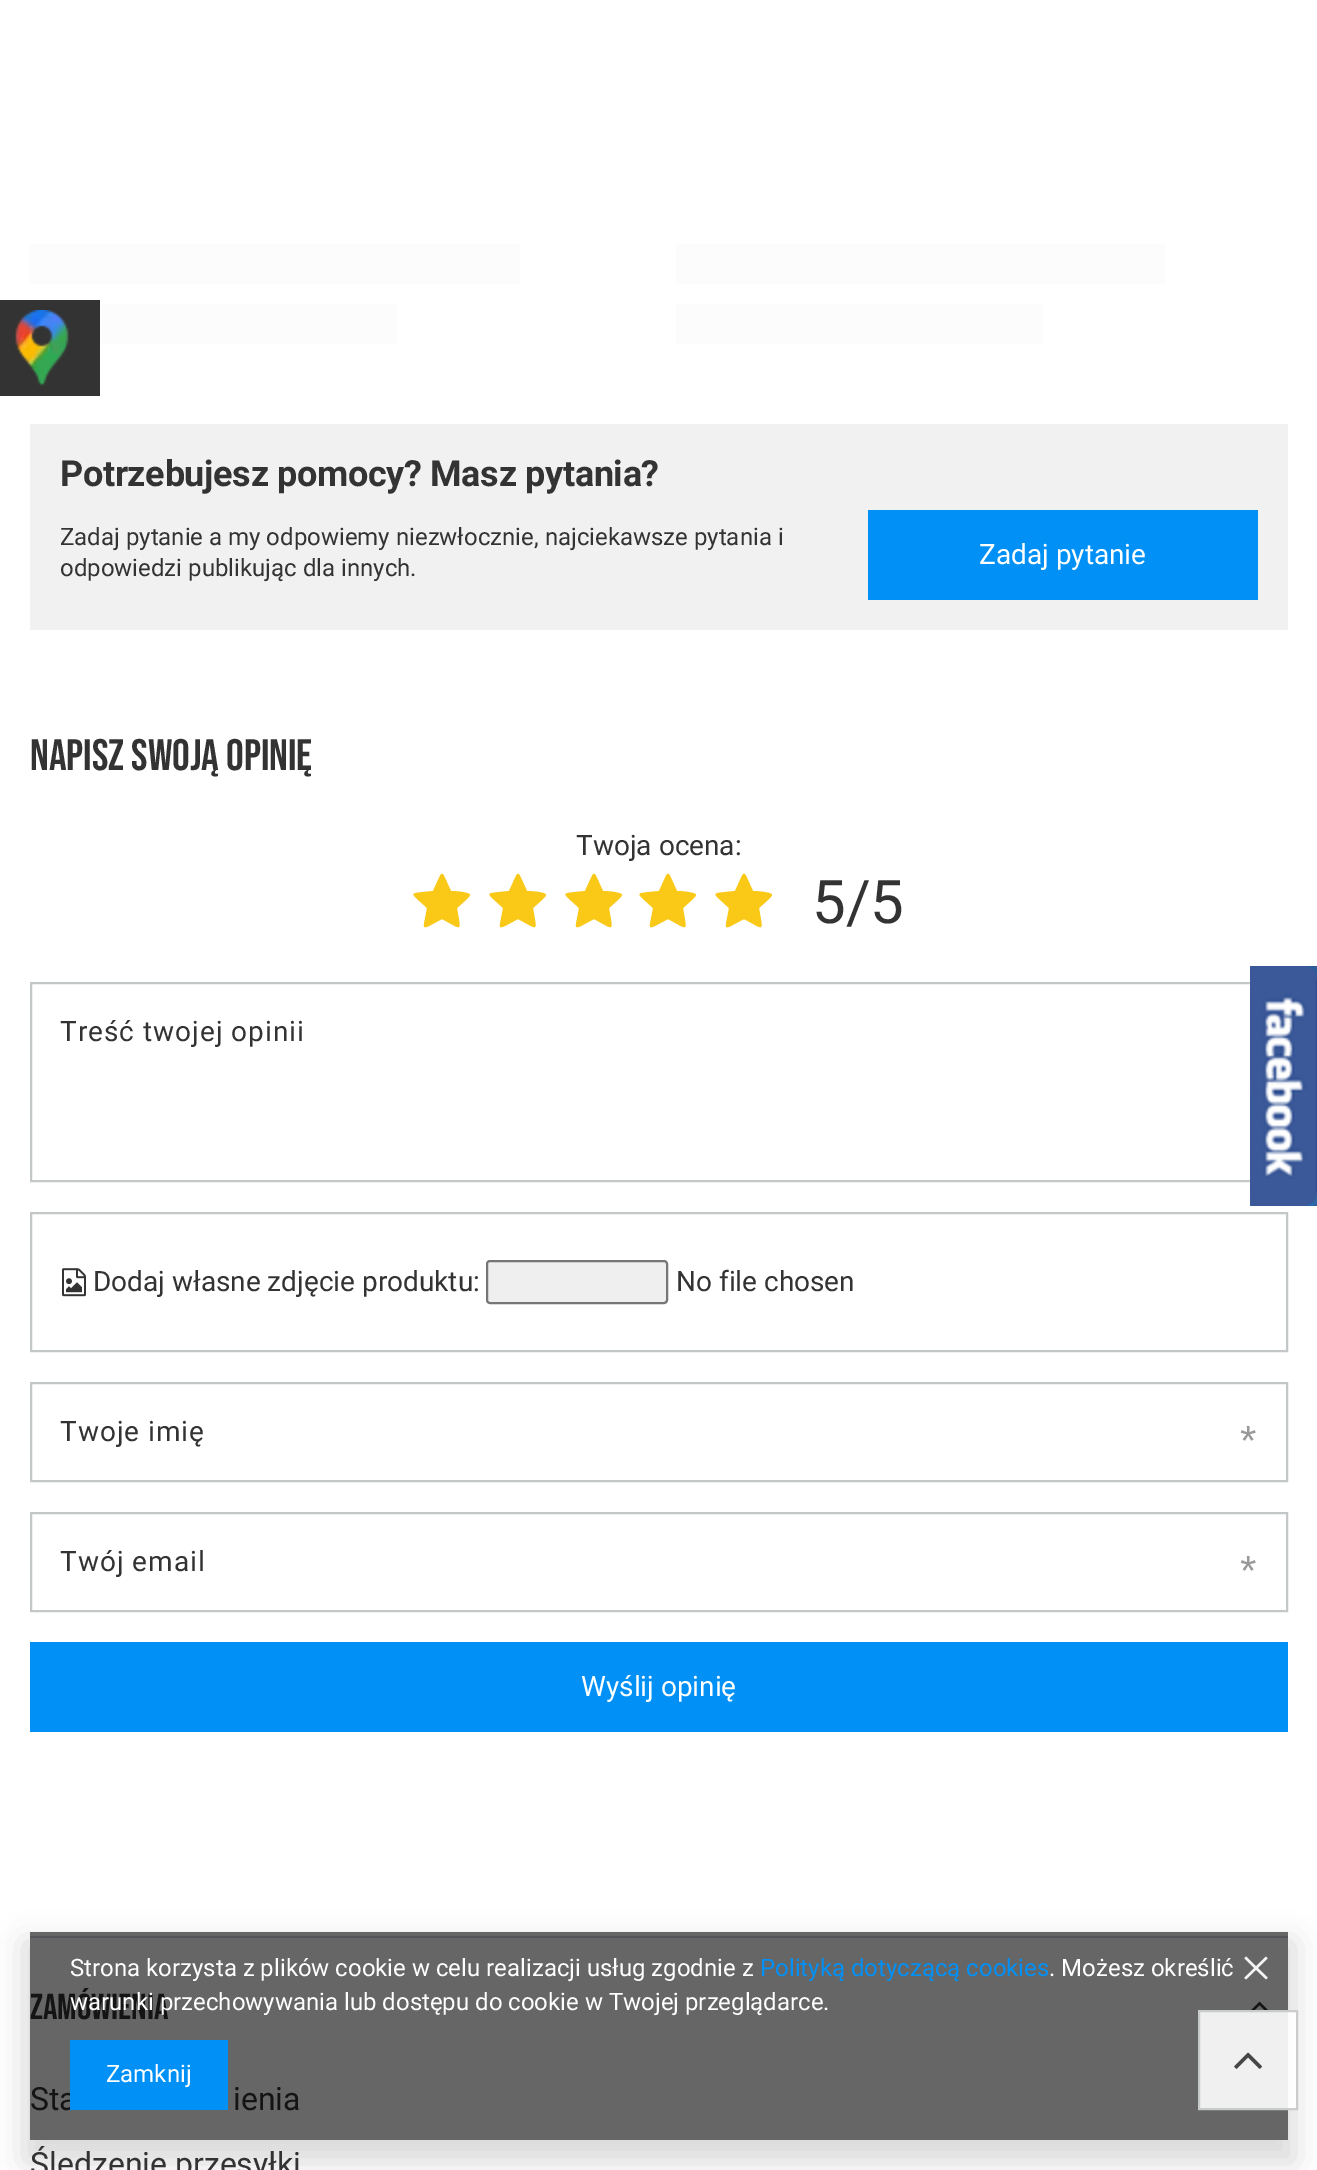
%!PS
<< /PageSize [1317 2170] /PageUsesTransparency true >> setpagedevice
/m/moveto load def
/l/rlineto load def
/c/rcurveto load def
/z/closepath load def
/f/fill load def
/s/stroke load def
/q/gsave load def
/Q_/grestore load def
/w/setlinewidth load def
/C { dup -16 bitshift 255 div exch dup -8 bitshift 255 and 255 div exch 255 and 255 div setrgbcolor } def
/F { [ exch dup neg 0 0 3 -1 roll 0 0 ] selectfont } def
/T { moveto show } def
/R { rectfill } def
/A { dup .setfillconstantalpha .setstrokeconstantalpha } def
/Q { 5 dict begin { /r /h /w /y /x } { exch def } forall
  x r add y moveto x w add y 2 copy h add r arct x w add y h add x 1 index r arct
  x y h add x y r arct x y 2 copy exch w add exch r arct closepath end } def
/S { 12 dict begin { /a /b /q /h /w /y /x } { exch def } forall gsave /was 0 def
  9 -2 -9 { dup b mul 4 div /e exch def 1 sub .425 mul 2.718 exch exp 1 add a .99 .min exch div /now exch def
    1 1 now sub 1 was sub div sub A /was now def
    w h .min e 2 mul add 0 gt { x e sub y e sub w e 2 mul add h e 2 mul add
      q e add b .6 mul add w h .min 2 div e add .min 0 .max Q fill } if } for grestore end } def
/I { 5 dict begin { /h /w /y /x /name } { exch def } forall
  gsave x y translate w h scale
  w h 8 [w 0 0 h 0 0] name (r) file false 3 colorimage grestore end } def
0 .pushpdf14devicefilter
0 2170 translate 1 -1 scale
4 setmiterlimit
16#FFFFFF C
0 0 1317 2170 R
16#666666 C
30 1932 1258 208 R
16#333333 C
0 300 100 96 R
(1.rgb) 15 310 54 76 I
16#FCFCFC C
30 244 490 40 R
100 304 298 40 R
676 244 490 40 R
676 304 366 40 R
16#F1F1F1 C
30 424 1258 206 R
/Roboto-Bold 36 F
16#333333 C
60 486 m -.35 0 (Potrzebujesz pomocy? Masz pytania?) ashow
/Roboto-Regular 24 F
(Zadaj pytanie a my odpowiemy niezwłocznie, najciekawsze pytania i) 60 545 T
(odpowiedzi publikując dla innych.) 60 576 T
16#0090F6 C
868 510 390 90 R
/Roboto-Regular 28 F
16#FFFFFF C
(Zadaj pytanie) 979 564 T
/BebasNeue-Regular 44 F
16#333333 C
(Napisz swoją opinię) 30 770 T
/Roboto-Regular 28 F
(Twoja ocena:) 576 855 T
16#FAC917 C
470 895 m 0 2 -11 11 -13 13 c 4 25 6 22 -15 11 c -23 12 -19 13 -15 -11 c -18 -17 -20 -14 6 -17 c 11 -23 7 -23 18 0 c 3 0 19 1 19 4 c z f
546 895 m 0 2 -11 11 -13 13 c 4 25 6 22 -15 11 c -23 12 -19 13 -15 -11 c -18 -17 -20 -14 6 -17 c 11 -23 7 -23 18 0 c 3 0 19 1 19 4 c z f
622 895 m 0 2 -11 11 -13 13 c 4 25 6 22 -15 11 c -23 12 -19 13 -15 -11 c -18 -17 -20 -14 6 -17 c 11 -23 7 -23 18 0 c 3 0 19 1 19 4 c z f
696 895 m 0 2 -11 11 -13 13 c 4 25 6 22 -15 11 c -23 12 -19 13 -15 -11 c -18 -17 -20 -14 6 -17 c 11 -23 7 -23 18 0 c 3 0 19 1 19 4 c z f
772 895 m 0 2 -11 11 -13 13 c 4 25 6 22 -15 11 c -23 12 -19 13 -15 -11 c -18 -17 -20 -14 6 -17 c 11 -23 7 -23 18 0 c 3 0 19 1 19 4 c z f
/Roboto-Regular 60 F
16#333333 C
(5/5) 812 923 T
16#C4C7C8 C
2 w
31 983 1256 198 rectstroke
/Roboto-Regular 28 F
16#333333 C
60 1041 m 1 0 (Treść twojej opinii) ashow
16#C4C7C8 C
31 1213 1256 138 rectstroke
(2.rgb) 62 1268 24 29 I
16#333333 C
(Dodaj własne zdjęcie produktu:) 93 1291 T
16#EFEFEF C
487 1261 180 42 3 Q q f Q_
16#767676 C
s
16#333333 C
(No file chosen) 676 1291 T
16#C4C7C8 C
31 1383 1256 98 rectstroke
16#333333 C
60 1441 m 1 0 (Twoje imię) ashow
/LiberationSans-Regular 42 F
16#999999 C
(*) 1240 1455 T
16#C4C7C8 C
31 1513 1256 98 rectstroke
/Roboto-Regular 28 F
16#333333 C
60 1571 m 1 0 (Twój email) ashow
/LiberationSans-Regular 42 F
16#999999 C
(*) 1240 1585 T
16#0090F6 C
30 1642 1258 90 R
/Roboto-Regular 28 F
16#FFFFFF C
(Wyślij opinię) 581 1696 T
(3.rgb) 1250 966 67 240 I
16#545558 C
30 1936 1258 2 R
(5.rgb) 1249 2001 21 13 I
q
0 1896 m 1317 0 l 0 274 l -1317 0 l z 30 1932 m 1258 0 l 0 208 l -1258 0 l z eoclip newpath
16#000000 C
24 1942 1270 220 0 15 .15 S
Q_
/Roboto-Regular 24 F
16#FFFFFF C
(Strona korzysta z plików cookie w celu realizacji usług zgodnie z) 70 1976 T
16#0090F6 C
(Polityką dotyczącą cookies) 760 1976 T
16#FFFFFF C
(. Możesz określić) 1049 1976 T
/BebasNeue-Regular 36 F
16#141414 C
(Zamówienia) 30 2019 T
/Roboto-Regular 24 F
16#FFFFFF C
(warunki przechowywania lub dostępu do cookie w Twojej przeglądarce.) 70 2010 T
/Roboto-Regular 32 F
16#141414 C
(Sta) 30 2110 T
16#0090F6 C
70 2040 158 70 R
/Roboto-Regular 24 F
16#FFFFFF C
(Zamknij) 106 2082 T
(4.rgb) 1244 1956 24 24 I
/Roboto-Regular 32 F
16#141414 C
(ienia) 233 2110 T
16#333333 C
(Śledzenie przesyłki) 30 2175 T
0.9 A
16#FFFFFF C
1198 2010 100 100 R
16#C4C7C8 C
1199 2011 98 98 rectstroke
1 A
(6.rgb) 1234 2052 28 17 I
.poppdf14devicefilter showpage
